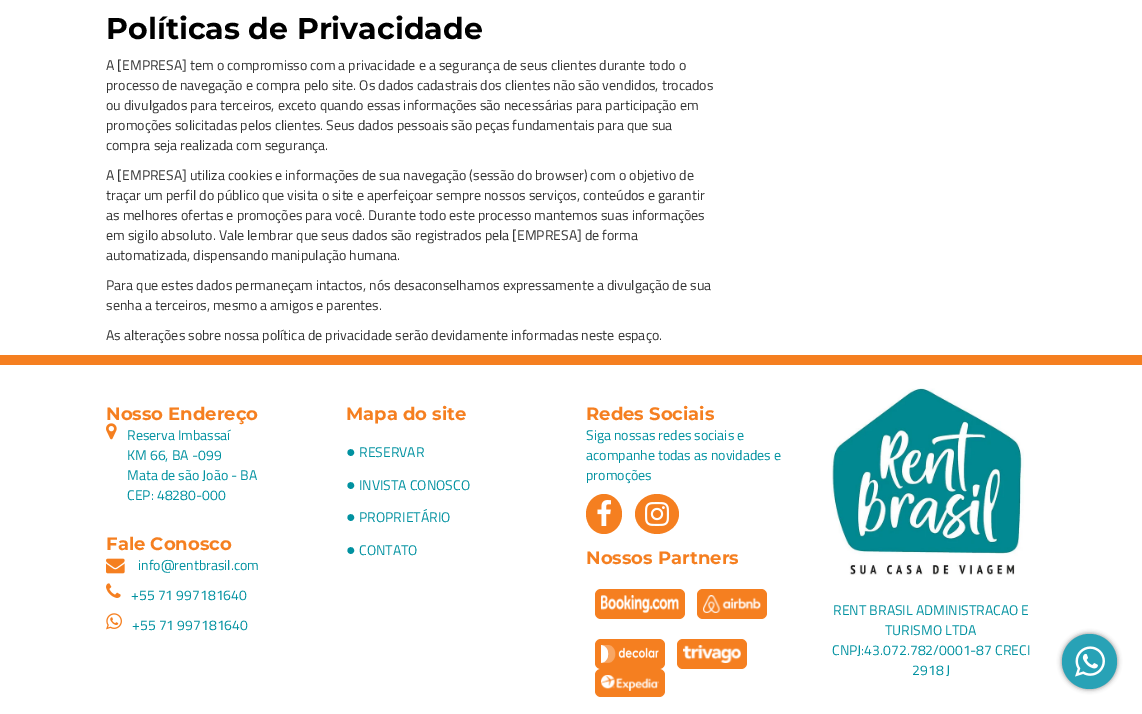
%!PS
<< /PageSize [1142 714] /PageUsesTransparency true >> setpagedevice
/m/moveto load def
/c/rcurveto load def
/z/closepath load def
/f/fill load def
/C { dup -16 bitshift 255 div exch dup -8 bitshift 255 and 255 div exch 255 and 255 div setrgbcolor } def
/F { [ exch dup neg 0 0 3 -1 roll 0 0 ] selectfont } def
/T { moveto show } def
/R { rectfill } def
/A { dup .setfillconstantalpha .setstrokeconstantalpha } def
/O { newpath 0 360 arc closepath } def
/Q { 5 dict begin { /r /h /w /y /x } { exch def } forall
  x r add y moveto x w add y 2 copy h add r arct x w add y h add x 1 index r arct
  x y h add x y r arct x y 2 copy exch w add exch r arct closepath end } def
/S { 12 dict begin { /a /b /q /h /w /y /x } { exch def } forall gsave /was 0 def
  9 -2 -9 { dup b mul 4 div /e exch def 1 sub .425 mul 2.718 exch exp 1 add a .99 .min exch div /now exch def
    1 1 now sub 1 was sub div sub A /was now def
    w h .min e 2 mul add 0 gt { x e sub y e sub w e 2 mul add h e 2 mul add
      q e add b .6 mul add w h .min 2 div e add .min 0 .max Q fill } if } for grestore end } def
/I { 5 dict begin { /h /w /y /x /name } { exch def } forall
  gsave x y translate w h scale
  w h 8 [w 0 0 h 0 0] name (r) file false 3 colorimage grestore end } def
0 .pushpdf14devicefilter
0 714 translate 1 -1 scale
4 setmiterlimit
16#FFFFFF C
0 0 1142 714 R
/Montserrat-Bold 30 F
16#000000 C
(Políticas de Privacidade) 106 39 T
/TitilliumWeb-Regular 14 F
16#333333 C
(A [EMPRESA] tem o compromisso com a privacidade e a segurança de seus clientes durante todo o) 106 70 T
(processo de navegação e compra pelo site. Os dados cadastrais dos clientes não são vendidos, trocados) 106 90 T
(ou divulgados para terceiros, exceto quando essas informações são necessárias para participação em) 106 110 T
(promoções solicitadas pelos clientes. Seus dados pessoais são peças fundamentais para que sua) 106 130 T
(compra seja realizada com segurança.) 106 150 T
(A [EMPRESA] utiliza cookies e informações de sua navegação \(sessão do browser\) com o objetivo de) 106 180 T
(traçar um perfil do público que visita o site e aperfeiçoar sempre nossos serviços, conteúdos e garantir) 106 200 T
(as melhores ofertas e promoções para você. Durante todo este processo mantemos suas informações) 106 220 T
(em sigilo absoluto. Vale lembrar que seus dados são registrados pela [EMPRESA] de forma) 106 240 T
(automatizada, dispensando manipulação humana.) 106 260 T
(Para que estes dados permaneçam intactos, nós desaconselhamos expressamente a divulgação de sua) 106 290 T
(senha a terceiros, mesmo a amigos e parentes.) 106 310 T
(As alterações sobre nossa política de privacidade serão devidamente informadas neste espaço.) 106 340 T
16#F57F20 C
0 355 1142 10 R
/Montserrat-Bold 18 F
(Nosso Endereço) 106 420 T
(1.rgb) 106 423 11 17 I
/TitilliumWeb-Regular 14 F
16#0091A0 C
(Reserva Imbassaí) 127 440 T
(KM 66, BA -099) 127 460 T
(Mata de são João - BA) 127 480 T
(CEP: 48280-000) 127 500 T
/Montserrat-Bold 18 F
16#F57F20 C
(Fale Conosco) 106 550 T
(2.rgb) 106 558 19 16 I
/TitilliumWeb-Regular 14 F
16#0091A0 C
(info@rentbrasil.com) 138 570 T
(3.rgb) 106 583 15 15 I
(+55 71 997181640) 131 600 T
(4.rgb) 106 613 16 17 I
(+55 71 997181640) 132 630 T
/Montserrat-Bold 18 F
16#F57F20 C
(Mapa do site) 346 420 T
/LiberationSans-Regular 16 F
16#0091A0 C
(●) 346 457 T
/TitilliumWeb-Regular 14 F
(RESERVAR) 359 457 T
/LiberationSans-Regular 16 F
(●) 346 490 T
/TitilliumWeb-Regular 14 F
(INVISTA CONOSCO) 359 490 T
/LiberationSans-Regular 16 F
(●) 346 522 T
/TitilliumWeb-Regular 14 F
(PROPRIETÁRIO) 359 522 T
/LiberationSans-Regular 16 F
(●) 346 555 T
/TitilliumWeb-Regular 14 F
(CONTATO) 359 555 T
/Montserrat-Bold 18 F
16#F57F20 C
(Redes Sociais) 586 420 T
/TitilliumWeb-Regular 14 F
16#0091A0 C
(Siga nossas redes sociais e) 586 440 T
(acompanhe todas as novidades e) 586 460 T
(promoções) 586 480 T
16#F57F20 C
604 494 m 10 0 18 9 18 20 c 0 11 -8 20 -18 20 c -10 0 -18 -9 -18 -20 c 0 -11 8 -20 18 -20 c z f
(5.rgb) 597 500 14 26 I
657 494 m 12 0 22 9 22 20 c 0 11 -10 20 -22 20 c -12 0 -22 -9 -22 -20 c 0 -11 10 -20 22 -20 c z f
(6.rgb) 645 502 24 24 I
/Montserrat-Bold 18 F
(Nossos Partners) 586 564 T
595 589 90 30 6 Q f
(7.rgb) 601 595 78 18 I
697 589 70 30 6 Q f
(8.rgb) 703 595 58 18 I
595 639 70 30 6 Q f
(9.rgb) 601 645 58 18 I
677 639 70 30 6 Q f
(10.rgb) 683 645 58 18 I
595 669 70 28 6 Q f
(11.rgb) 601 675 58 16 I
(12.rgb) 831 388 193 187 I
/TitilliumWeb-Regular 14 F
16#0091A0 C
(RENT BRASIL ADMINISTRACAO E) 833 615 T
(TURISMO LTDA) 885 635 T
(CNPJ:43.072.782/0001-87 CRECI) 832 655 T
(2918 J) 912 675 T
16#000000 C
1062 634 55 55 27.5 2.5 .5 S
16#28A2B6 C
1089.5 661.5 27.5 O f
(13.rgb) 1075 646 30 31 I
.poppdf14devicefilter showpage
